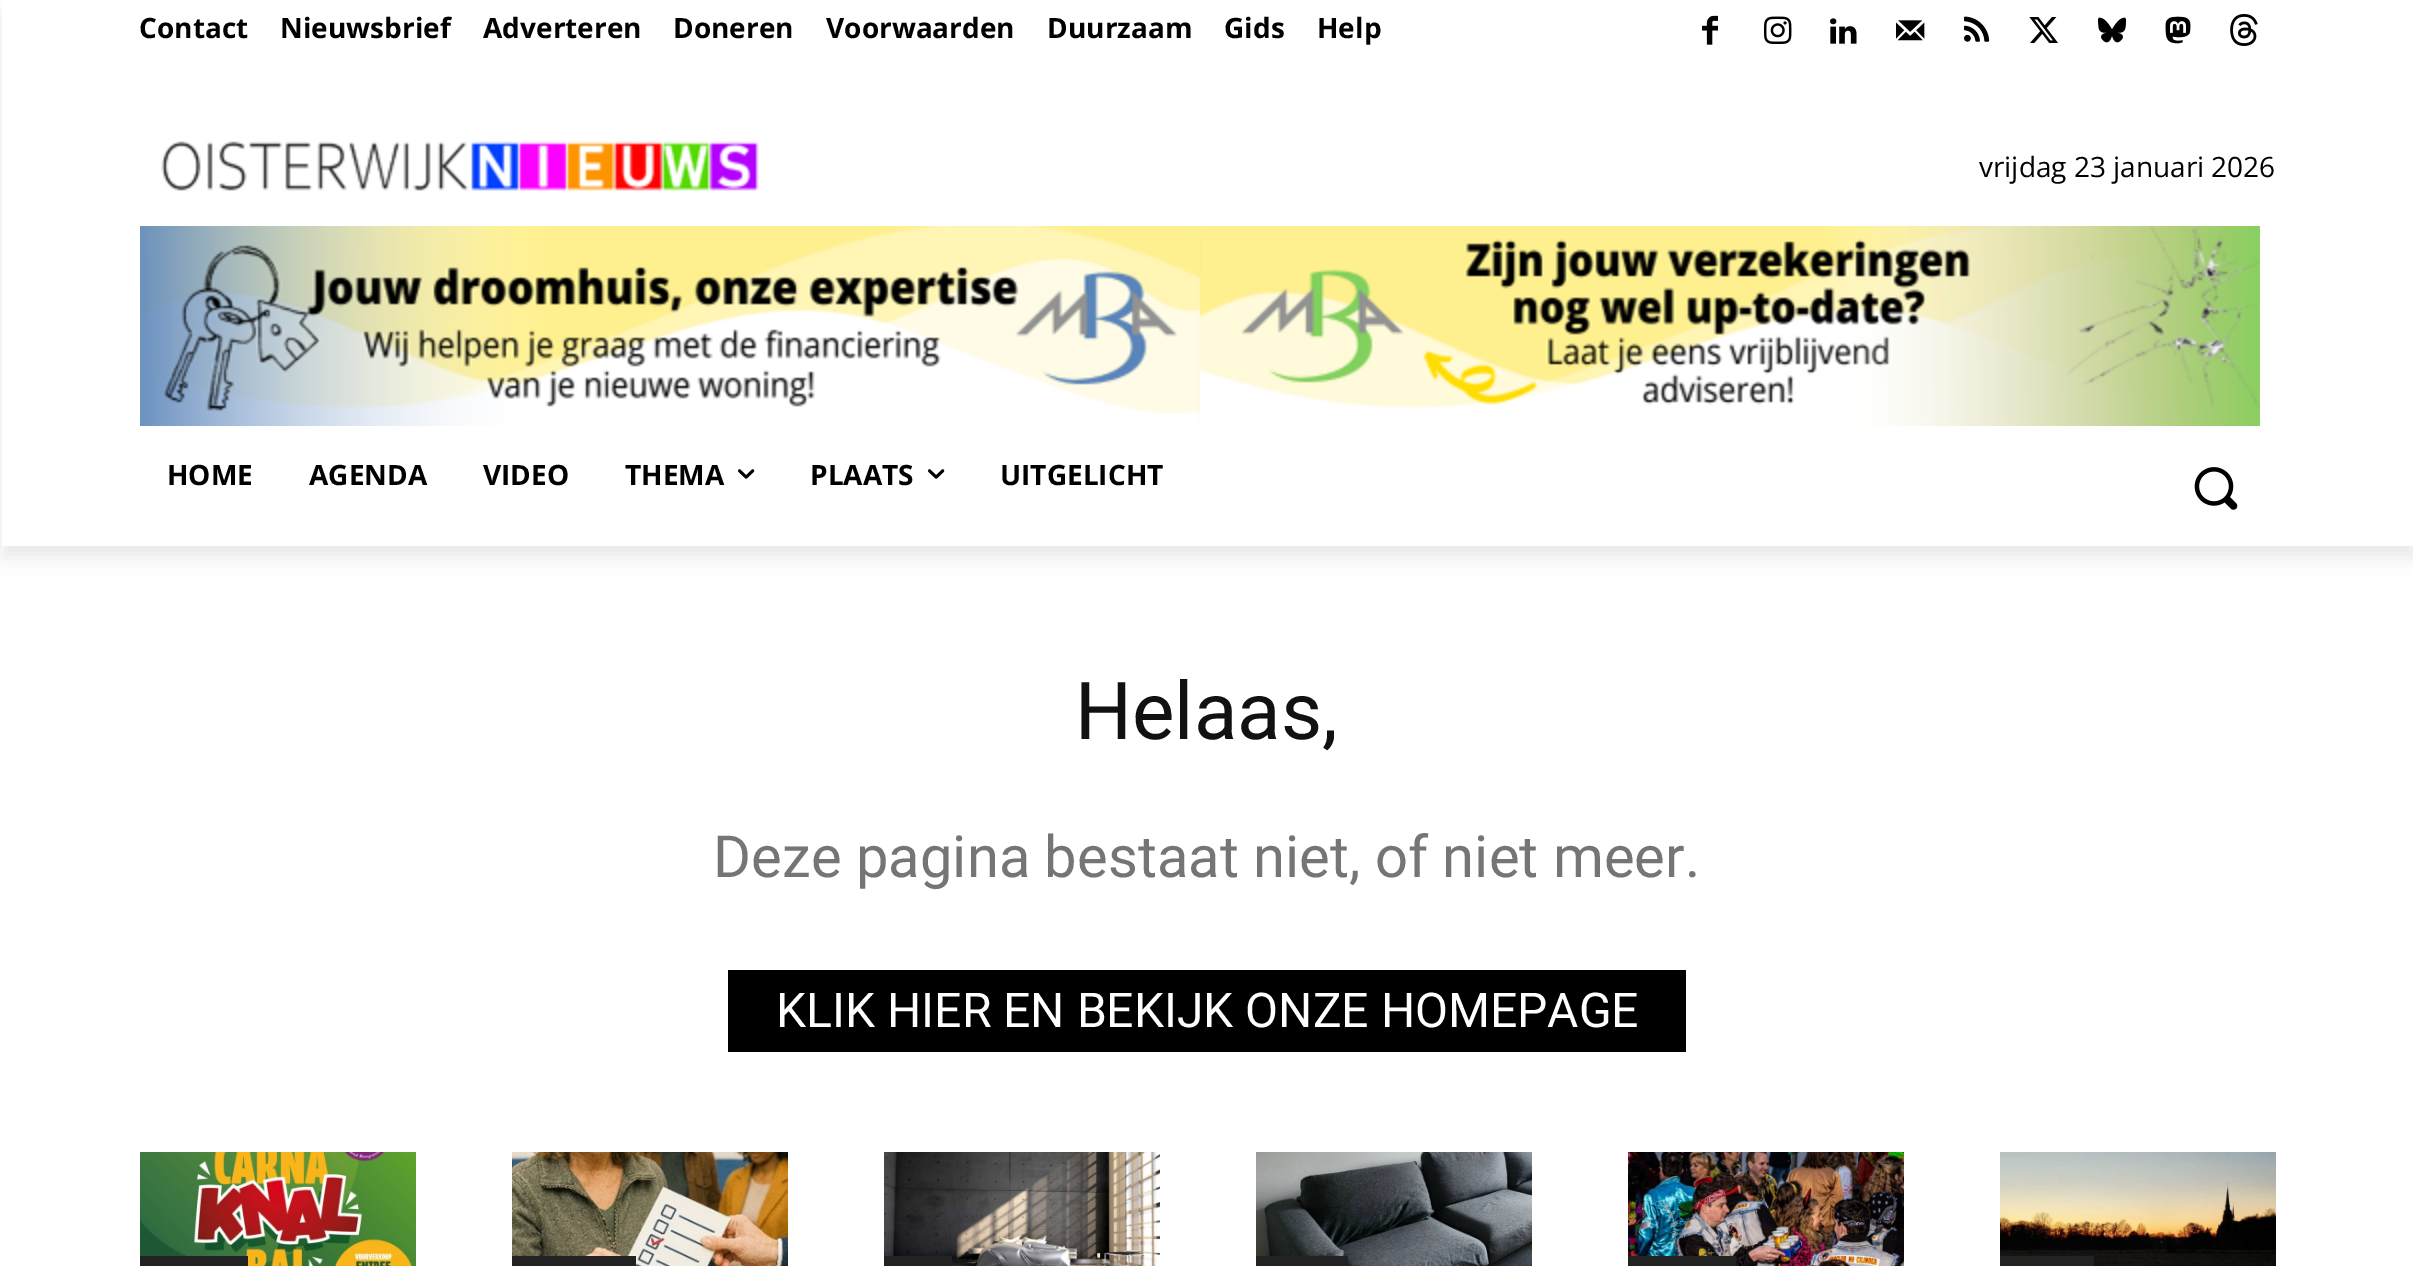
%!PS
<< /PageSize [2413 1266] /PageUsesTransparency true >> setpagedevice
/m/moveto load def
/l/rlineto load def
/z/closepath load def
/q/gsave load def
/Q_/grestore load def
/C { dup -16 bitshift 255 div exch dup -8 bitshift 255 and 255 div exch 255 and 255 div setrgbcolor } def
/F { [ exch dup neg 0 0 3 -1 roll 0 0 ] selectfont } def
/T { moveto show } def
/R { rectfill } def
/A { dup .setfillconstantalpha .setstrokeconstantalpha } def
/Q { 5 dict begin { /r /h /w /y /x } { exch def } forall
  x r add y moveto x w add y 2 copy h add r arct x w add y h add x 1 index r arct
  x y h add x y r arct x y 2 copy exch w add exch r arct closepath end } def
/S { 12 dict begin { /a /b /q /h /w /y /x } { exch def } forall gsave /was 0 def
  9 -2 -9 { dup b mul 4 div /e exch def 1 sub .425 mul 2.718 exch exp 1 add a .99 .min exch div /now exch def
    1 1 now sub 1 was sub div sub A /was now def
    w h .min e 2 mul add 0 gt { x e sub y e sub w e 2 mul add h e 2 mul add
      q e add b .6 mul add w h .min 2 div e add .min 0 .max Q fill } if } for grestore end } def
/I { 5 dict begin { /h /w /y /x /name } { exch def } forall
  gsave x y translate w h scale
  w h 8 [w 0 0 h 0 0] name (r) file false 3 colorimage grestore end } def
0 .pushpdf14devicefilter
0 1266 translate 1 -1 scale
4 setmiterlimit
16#FFFFFF C
0 0 2413 1266 R
(1.rgb) 1702 15 16 30 I
(2.rgb) 1764 16 28 28 I
(3.rgb) 1830 18 27 26 I
(4.rgb) 1896 20 29 21 I
(5.rgb) 1964 16 26 26 I
(6.rgb) 2029 17 29 26 I
(7.rgb) 2097 17 30 26 I
(8.rgb) 2165 16 26 28 I
(9.rgb) 2230 14 28 32 I
(10.rgb) 161 141 598 50 I
(11.rgb) 140 226 1060 200 I
(12.rgb) 1200 226 1060 200 I
q
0 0 m 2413 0 l 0 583 l -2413 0 l z 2 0 m 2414 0 l 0 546 l -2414 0 l z eoclip newpath
16#000000 C
2 12 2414 546 0 8 .08 S
Q_
/OpenSans-Bold 28 F
16#000000 C
(Contact) 139 38 T
(Nieuwsbrief) 280 38 T
(Adverteren) 483 38 T
(Doneren) 673 38 T
(Voorwaarden) 826 38 T
(Duurzaam) 1047 38 T
(Gids) 1224 38 T
(Help) 1317 38 T
/OpenSans-Regular 28 F
(vrijdag 23 januari 2026) 1979 177 T
/OpenSans-Bold 28 F
(HOME) 167 485 T
(AGENDA) 309 485 T
(VIDEO) 483 485 T
(THEMA) 625 485 T
(13.rgb) 738 469 17 10 I
(PLAATS) 810 485 T
(13.rgb) 928 469 17 10 I
(UITGELICHT) 1000 485 T
(14.rgb) 2194 467 44 43 I
/Roboto-Regular 80 F
16#111111 C
(Helaas,) 1075 739 T
/Roboto-Regular 58 F
16#757575 C
(Deze pagina bestaat niet, of niet meer.) 713 877 T
16#000000 C
728 970 958 82 R
/Roboto-Regular 48 F
16#FFFFFF C
(KLIK HIER EN BEKIJK ONZE HOMEPAGE) 776 1027 T
(15.rgb) 140 1152 276 114 I
16#222222 C
140 1256 108 10 R
(16.rgb) 512 1152 276 114 I
512 1256 124 10 R
(17.rgb) 884 1152 276 114 I
884 1256 68 10 R
(18.rgb) 1256 1152 276 114 I
1256 1256 92 10 R
(19.rgb) 1628 1152 276 114 I
1628 1256 108 10 R
(20.rgb) 2000 1152 276 114 I
2000 1256 94 10 R
.poppdf14devicefilter showpage
